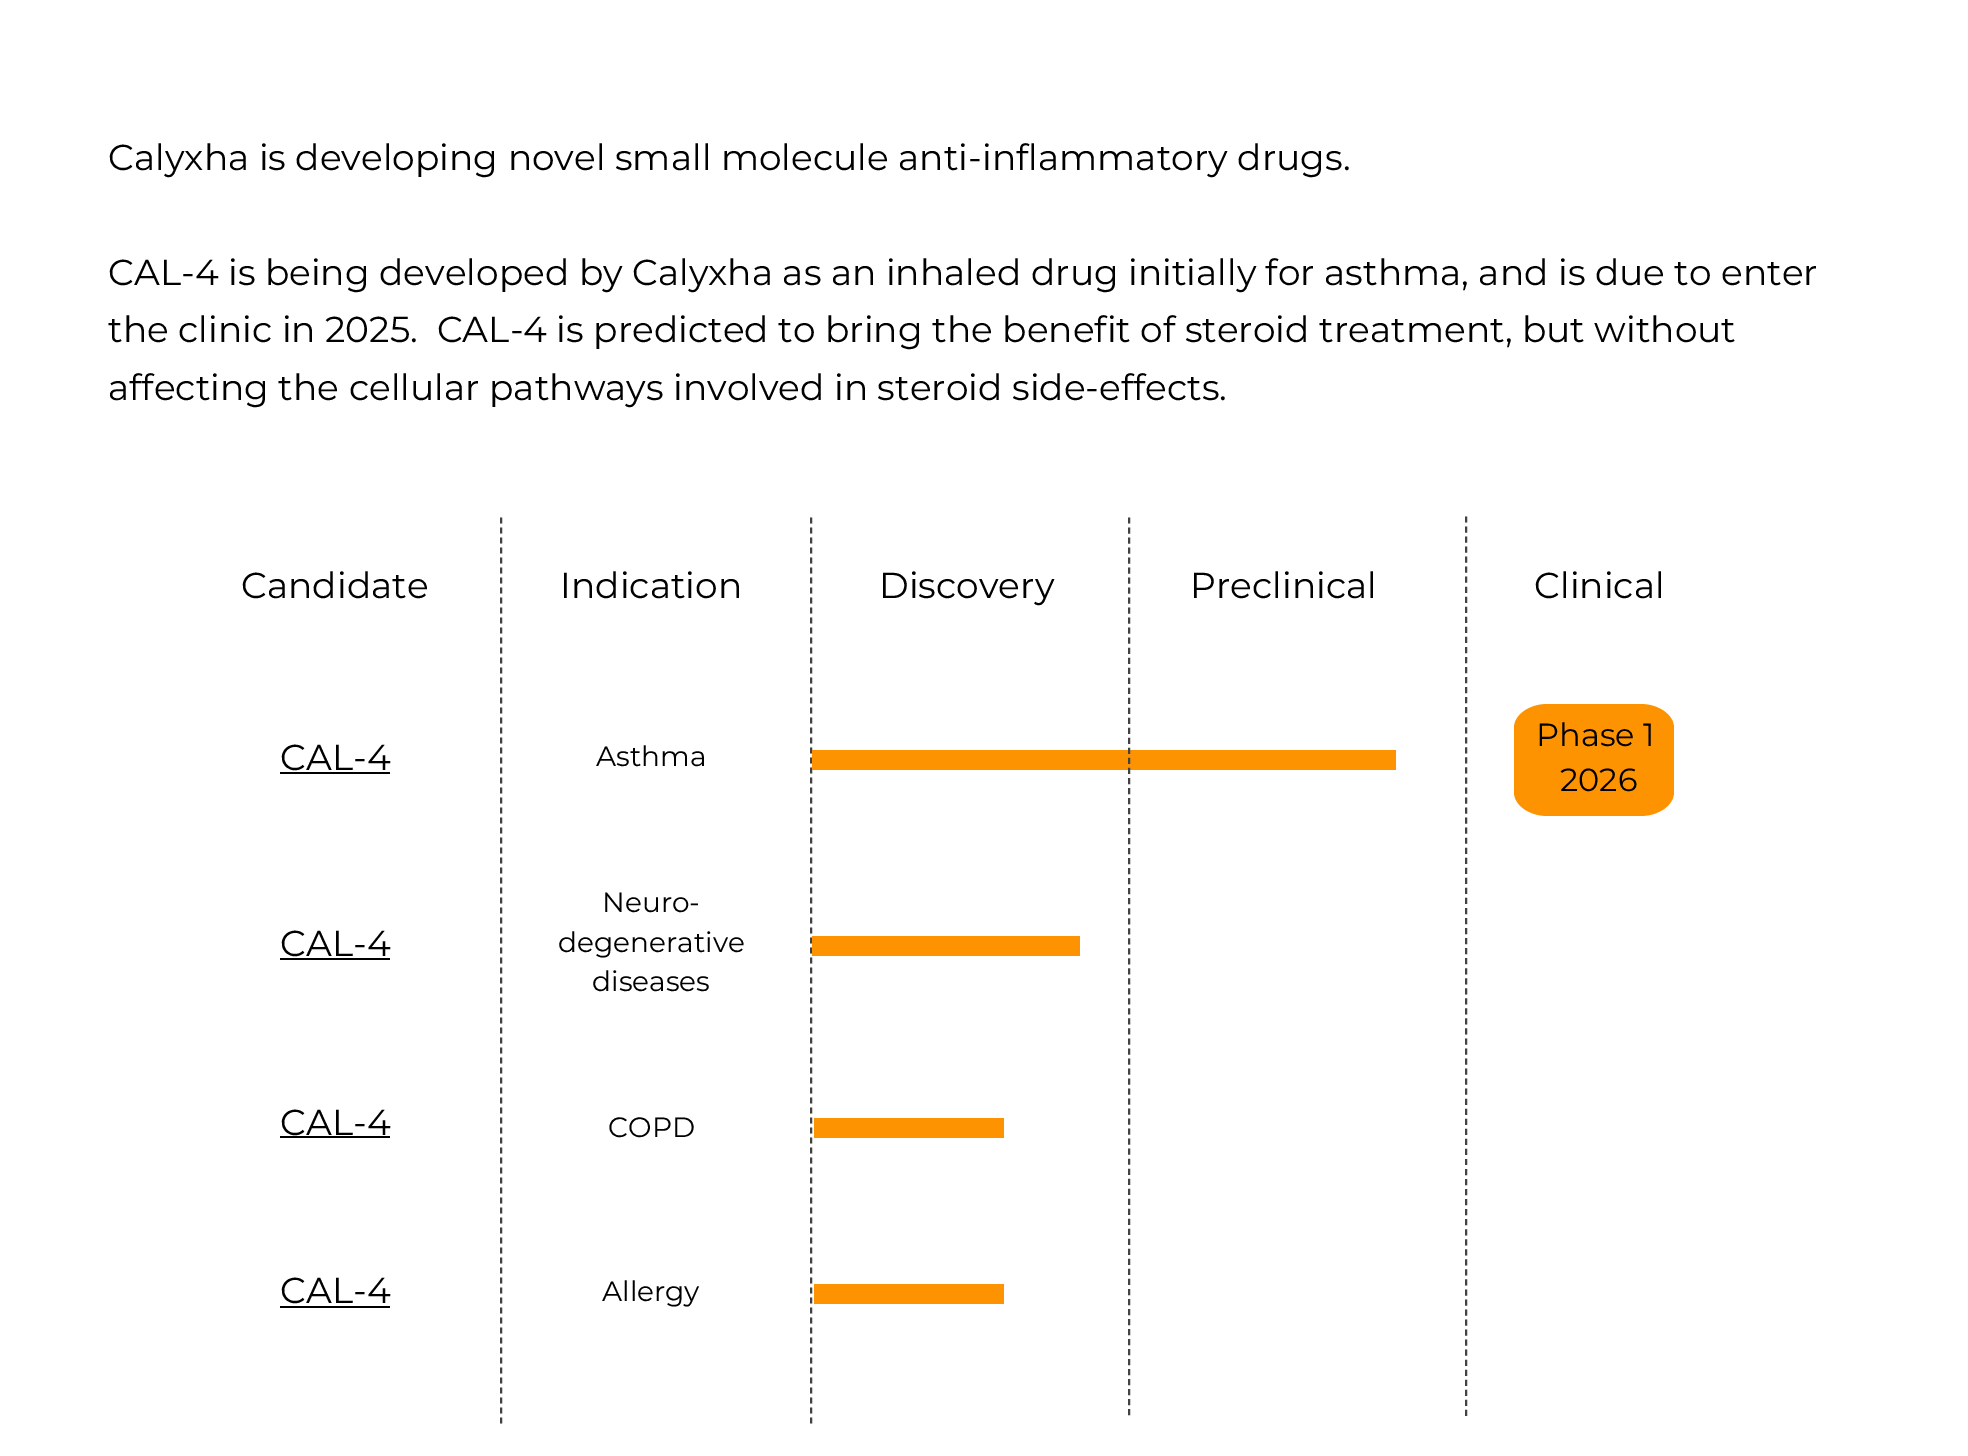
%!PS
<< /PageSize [1968 1456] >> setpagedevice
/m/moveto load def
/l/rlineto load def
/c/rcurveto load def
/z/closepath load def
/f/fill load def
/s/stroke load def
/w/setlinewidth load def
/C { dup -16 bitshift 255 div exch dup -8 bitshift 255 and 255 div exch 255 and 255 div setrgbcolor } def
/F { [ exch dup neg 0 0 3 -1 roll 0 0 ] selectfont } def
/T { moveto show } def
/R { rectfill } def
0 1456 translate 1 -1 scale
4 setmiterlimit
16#FFFFFF C
0 0 1968 1456 R
/Montserrat-Regular 36 F
16#000000 C
(Calyxha is developing novel small molecule anti-inflammatory drugs.) 108 170 T
(CAL-4 is being developed by Calyxha as an inhaled drug initially for asthma, and is due to enter) 108 285 T
(the clinic in 2025.  CAL-4 is predicted to bring the benefit of steroid treatment, but without) 108 342 T
(affecting the cellular pathways involved in steroid side-effects.) 108 400 T
(Candidate) 241 598 T
16#424242 C
2 w
[6 4] 0 setdash
501 517.5 m 0 906 l s
16#000000 C
(Indication) 560 598 T
16#424242 C
811 517.5 m 0 906 l s
16#000000 C
(Discovery) 879 598 T
16#FE9301 C
812 750 584 20 R
16#424242 C
[6 4.02] 0 setdash
1129 517.5 m 0 898 l s
16#000000 C
(Preclinical) 1190 598 T
16#424242 C
[6 4.04] 0 setdash
1466 516.5 m 0 900 l s
16#000000 C
(Clinical) 1534 598 T
16#FE9301 C
1640 816 m -92 0 l -19 0 -34 -11 -34 -24 c 0 -64 l 0 -13 15 -24 34 -24 c 92 0 l 19 0 34 11 34 24 c 0 64 l 0 13 -15 24 -34 24 c z f
16#000000 C
(CAL-4) 280 770 T
280 772 110 2 R
/Montserrat-Regular 28 F
(Asthma) 596 766 T
/Montserrat-Regular 32 F
(Phase 1) 1536 746 T
(2026) 1560 791 T
/Montserrat-Regular 36 F
(CAL-4) 280 956 T
280 958 110 2 R
/Montserrat-Regular 28 F
(Neuro-) 602 912 T
(degenerative) 558 952 T
(diseases) 592 991 T
16#FE9301 C
812 936 268 20 R
/Montserrat-Regular 36 F
16#000000 C
(CAL-4) 280 1135 T
280 1136 110 2 R
/Montserrat-Regular 28 F
(COPD) 608 1137 T
16#FE9301 C
814 1118 190 20 R
/Montserrat-Regular 36 F
16#000000 C
(CAL-4) 280 1303 T
280 1306 110 2 R
/Montserrat-Regular 28 F
(Allergy) 602 1301 T
16#FE9301 C
814 1284 190 20 R
showpage
